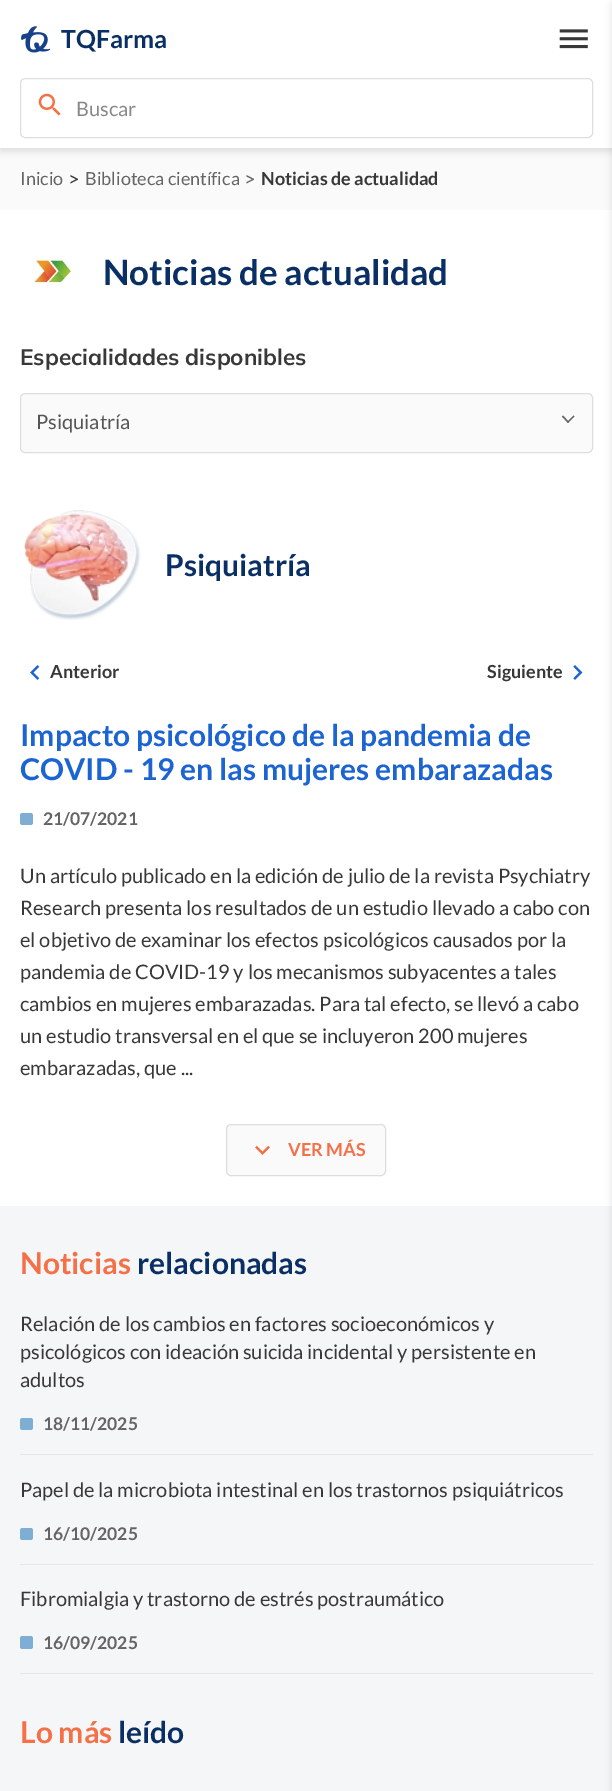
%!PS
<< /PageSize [612 1791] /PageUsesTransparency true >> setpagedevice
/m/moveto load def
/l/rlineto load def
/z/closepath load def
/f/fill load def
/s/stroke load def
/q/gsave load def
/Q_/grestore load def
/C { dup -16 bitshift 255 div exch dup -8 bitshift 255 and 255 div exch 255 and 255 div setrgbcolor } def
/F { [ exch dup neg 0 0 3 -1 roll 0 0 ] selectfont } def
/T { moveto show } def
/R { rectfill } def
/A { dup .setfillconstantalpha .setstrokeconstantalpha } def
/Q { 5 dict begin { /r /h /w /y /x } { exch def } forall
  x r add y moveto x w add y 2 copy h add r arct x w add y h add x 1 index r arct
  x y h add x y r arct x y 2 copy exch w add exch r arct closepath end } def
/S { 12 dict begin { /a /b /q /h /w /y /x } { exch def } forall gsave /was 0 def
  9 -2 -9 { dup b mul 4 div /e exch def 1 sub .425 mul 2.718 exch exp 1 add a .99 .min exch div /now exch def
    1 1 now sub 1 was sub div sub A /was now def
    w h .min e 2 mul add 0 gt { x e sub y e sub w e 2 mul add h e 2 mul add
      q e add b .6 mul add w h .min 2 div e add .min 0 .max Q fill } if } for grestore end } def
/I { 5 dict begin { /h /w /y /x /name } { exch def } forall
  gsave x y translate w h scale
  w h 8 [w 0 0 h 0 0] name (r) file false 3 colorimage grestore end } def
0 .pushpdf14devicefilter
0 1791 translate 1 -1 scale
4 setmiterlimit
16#FFFFFF C
0 0 612 1791 R
16#FAFAFA C
0 148 612 62 R
16#000000 C
0 4 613 147 0 4 .12 S
16#FFFFFF C
0 0 612 148 R
(1.rgb) 21 26 30 27 I
/Lato-Bold 25 F
16#0A2F65 C
(TQFarma) 61 48 T
(2.rgb) 559 29 29 20 I
16#DCDEDF C
20.5 78.5 572 59 4.5 Q s
(3.rgb) 38 93 23 23 I
/Lato-Regular 20 F
16#888888 C
(Buscar) 76 116 T
16#F5F6F7 C
0 1206 612 585 R
16#000000 C
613 4 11 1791 0 4 .15 S
/Lato-Regular 18 F
16#646464 C
(Inicio) 20 185 T
/Lato-Regular 20 F
16#383838 C
(>) 68 186 T
/Lato-Regular 18 F
16#646464 C
(Biblioteca científica) 85 185 T
/Lato-Regular 20 F
(>) 244 186 T
/Lato-Bold 18 F
16#383838 C
(Noticias de actualidad) 261 185 T
(4.rgb) 34 259 38 24 I
/Lato-Bold 35 F
16#0A2F65 C
(Noticias de actualidad) 103 285 T
/Mulish-Bold 22.5 F
16#383838 C
(Especialidades disponibles) 20 365 T
16#FAFAFA C
20.5 393.5 572 59 4.5 Q q f Q_
16#DCDEDF C
s
/Lato-Regular 20 F
16#555555 C
(Psiquiatría) 36 429 T
16#646464 C
573.5 415.5 m 1 1 l -6.5 6.5 l -1 -1 l z f
563 415.5 m 6 6.5 l -1 1 l -6 -6.5 l z f
(5.rgb) 23 510 118 110 I
/Lato-Bold 30 F
16#0A2F65 C
(Psiquiatría) 165 576 T
(6.rgb) 30 665 10 15 I
/Lato-Bold 18 F
16#383838 C
(Anterior) 50 678 T
(Siguiente) 487 678 T
(7.rgb) 573 665 10 15 I
/Lato-Bold 30 F
16#1B64D1 C
(Impacto psicológico de la pandemia de) 20 746 T
(COVID - 19 en las mujeres embarazadas) 20 780 T
16#7FAED4 C
20 813 13 12 2.5 Q f
/Lato-Bold 17.5 F
16#646464 C
(21/07/2021) 43 825 T
/Lato-Regular 20 F
16#383838 C
(Un artículo publicado en la edición de julio de la revista Psychiatry) 20 883 T
(Research presenta los resultados de un estudio llevado a cabo con) 20 915 T
(el objetivo de examinar los efectos psicológicos causados por la) 20 947 T
(pandemia de COVID-19 y los mecanismos subyacentes a tales) 20 979 T
(cambios en mujeres embarazadas. Para tal efecto, se llevó a cabo) 20 1011 T
(un estudio transversal en el que se incluyeron 200 mujeres) 20 1043 T
(embarazadas, que ...) 20 1075 T
16#FAFAFA C
226.5 1124.5 159 51 4.5 Q q f Q_
16#DDDDDD C
s
(8.rgb) 255 1145 15 10 I
/Lato-Bold 18 F
16#F56F47 C
(VER MÁS) 288 1156 T
/Lato-Bold 30 F
(Noticias) 20 1274 T
16#0A2F65 C
(relacionadas) 137 1274 T
16#E5E6E7 C
20 1454 573 1 R
/Lato-Regular 20 F
16#383838 C
(Relación de los cambios en factores socioeconómicos y) 20 1331 T
(psicológicos con ideación suicida incidental y persistente en) 20 1359 T
(adultos) 20 1387 T
16#7FAED4 C
20 1418 13 12 2.5 Q f
/Lato-Bold 17.5 F
16#646464 C
(18/11/2025) 43 1430 T
16#E5E6E7 C
20 1564 573 1 R
/Lato-Regular 20 F
16#383838 C
(Papel de la microbiota intestinal en los trastornos psiquiátricos) 20 1497 T
16#7FAED4 C
20 1528 13 12 2.5 Q f
/Lato-Bold 17.5 F
16#646464 C
(16/10/2025) 43 1540 T
16#E5E6E7 C
20 1673 573 1 R
/Lato-Regular 20 F
16#383838 C
(Fibromialgia y trastorno de estrés postraumático) 20 1606 T
16#7FAED4 C
20 1636 13 13 2.5 Q f
/Lato-Bold 17.5 F
16#646464 C
(16/09/2025) 43 1649 T
/Lato-Bold 30 F
16#F56F47 C
(Lo más) 20 1743 T
16#0A2F65 C
(leído) 118 1743 T
.poppdf14devicefilter showpage
